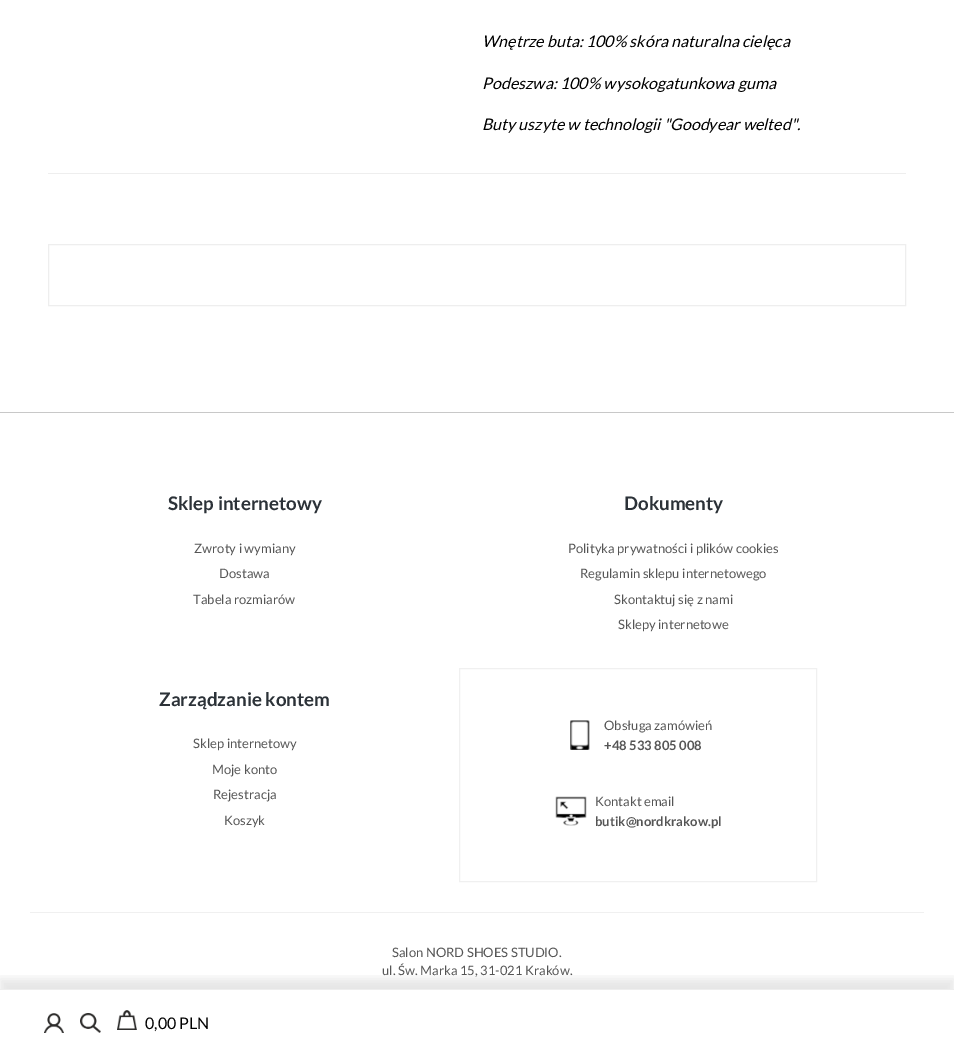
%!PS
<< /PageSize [954 1056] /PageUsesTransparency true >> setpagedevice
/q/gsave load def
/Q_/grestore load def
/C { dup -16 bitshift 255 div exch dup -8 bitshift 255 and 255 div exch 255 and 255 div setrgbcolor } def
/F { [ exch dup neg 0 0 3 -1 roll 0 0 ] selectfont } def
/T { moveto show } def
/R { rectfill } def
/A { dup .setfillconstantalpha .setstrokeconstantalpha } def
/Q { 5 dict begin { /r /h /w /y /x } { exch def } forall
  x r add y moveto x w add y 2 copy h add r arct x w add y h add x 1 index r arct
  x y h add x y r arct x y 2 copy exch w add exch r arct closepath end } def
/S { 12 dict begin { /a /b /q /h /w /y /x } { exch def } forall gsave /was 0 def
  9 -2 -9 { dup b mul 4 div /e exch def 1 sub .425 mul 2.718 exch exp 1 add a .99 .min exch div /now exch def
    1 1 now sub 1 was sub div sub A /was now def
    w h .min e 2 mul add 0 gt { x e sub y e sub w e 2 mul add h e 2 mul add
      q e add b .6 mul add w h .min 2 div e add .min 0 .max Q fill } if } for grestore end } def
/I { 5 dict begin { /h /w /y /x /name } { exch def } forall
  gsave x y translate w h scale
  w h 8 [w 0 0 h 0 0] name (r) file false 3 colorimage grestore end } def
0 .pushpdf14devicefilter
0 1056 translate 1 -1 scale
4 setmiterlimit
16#FFFFFF C
0 0 954 1056 R
/Lato-Italic 16 F
16#000000 C
(Wnętrze buta: 100% skóra naturalna cielęca) 482 47 T
(Podeszwa: 100% wysokogatunkowa guma) 482 89 T
(Buty uszyte w technologii "Goodyear welted".) 482 130 T
16#EEEEEE C
48 173 858 1 R
48.5 244.5 857 61 rectstroke
q
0 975 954 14 rectclip
16#000000 C
0 979 954 67 0 5 .1 S
Q_
0 989 954 1 R
(1.rgb) 44 1013 20 20 I
(2.rgb) 80 1013 21 20 I
(3.rgb) 117 1010 20 20 I
/Lato-Regular 16 F
16#000000 C
(0,00 PLN) 145 1029 T
16#C8C8C8 C
0 412 954 1 R
/Lato-Bold 18.75 F
16#2C3238 C
(Sklep internetowy) 168 510 T
/Lato-Regular 13 F
16#555555 C
(Zwroty i wymiany) 194 553 T
(Dostawa) 219 578 T
(Tabela rozmiarów) 193 604 T
/Lato-Bold 18.75 F
16#2C3238 C
(Dokumenty) 624 510 T
/Lato-Regular 13 F
16#555555 C
(Polityka prywatności i plików cookies) 568 553 T
(Regulamin sklepu internetowego) 580 578 T
(Skontaktuj się z nami) 614 604 T
(Sklepy internetowe) 618 629 T
/Lato-Bold 18.75 F
16#2C3238 C
(Zarządzanie kontem) 159 706 T
/Lato-Regular 13 F
16#555555 C
(Sklep internetowy) 193 748 T
(Moje konto) 212 774 T
(Rejestracja) 213 799 T
(Koszyk) 224 825 T
16#F0F0F0 C
459.5 668.5 357 213 rectstroke
(4.rgb) 570 720 20 30 I
16#555555 C
(Obsługa zamówień) 604 730 T
/Lato-Bold 13 F
(+48 533 805 008) 604 750 T
(5.rgb) 555 796 32 30 I
/Lato-Regular 13 F
(Kontakt email) 595 806 T
/Lato-Bold 13 F
(butik@nordkrakow.pl) 595 826 T
16#F0F0F0 C
30 912 894 1 R
/Lato-Regular 13 F
16#555555 C
(Salon NORD SHOES STUDIO.) 392 957 T
(ul. Św. Marka 15, 31-021 Kraków.) 382 975 T
.poppdf14devicefilter showpage
